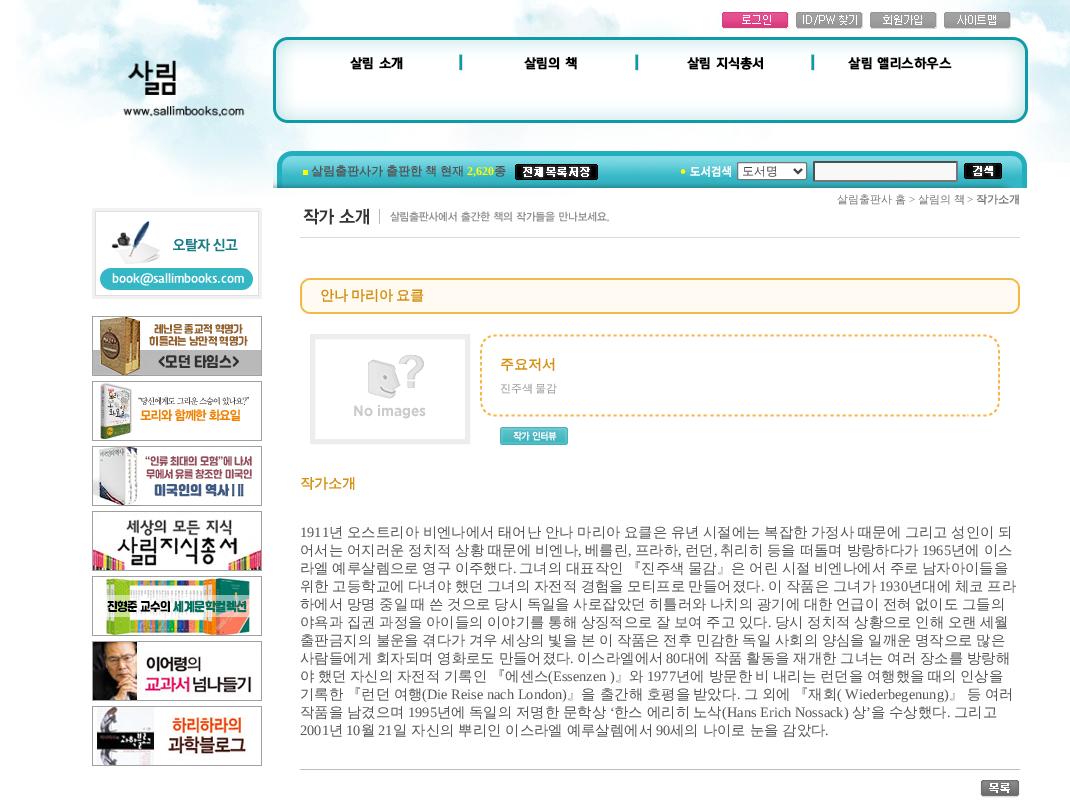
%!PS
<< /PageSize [1070 807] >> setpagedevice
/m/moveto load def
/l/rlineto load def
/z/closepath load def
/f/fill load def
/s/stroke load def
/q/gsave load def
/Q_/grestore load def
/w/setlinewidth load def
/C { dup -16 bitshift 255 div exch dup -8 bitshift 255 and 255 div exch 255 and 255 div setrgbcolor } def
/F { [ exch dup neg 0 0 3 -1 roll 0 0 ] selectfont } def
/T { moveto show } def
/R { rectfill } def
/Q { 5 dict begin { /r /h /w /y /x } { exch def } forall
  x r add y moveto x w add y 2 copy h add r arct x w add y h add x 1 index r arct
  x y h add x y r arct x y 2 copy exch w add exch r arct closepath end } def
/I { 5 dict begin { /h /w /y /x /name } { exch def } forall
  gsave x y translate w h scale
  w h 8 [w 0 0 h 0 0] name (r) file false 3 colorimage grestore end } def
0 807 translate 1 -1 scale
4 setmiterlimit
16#FFFFFF C
0 0 1070 807 R
(1.rgb) 16 0 1054 196 I
(2.rgb) 123 60 122 57 I
(3.rgb) 722 12 67 17 I
(4.rgb) 796 12 67 17 I
(5.rgb) 870 12 67 17 I
(6.rgb) 944 12 67 17 I
(7.rgb) 273 37 755 86 I
(8.rgb) 273 151 754 37 I
16#FCFF00 C
303 170 5 5 R
/WenQuanYiZenHei-Bold 12 F
16#555555 C
311 175 m -.5 0 32 (살림출판사가 출판한 책 현재) widthshow
/LiberationSerif-Bold 12 F
16#FCFF00 C
(2,620) 467 175 T
/WenQuanYiZenHei-Bold 12 F
16#555555 C
(종) 494 175 T
(9.rgb) 515 164 83 16 I
(10.rgb) 681 166 50 11 I
16#FFFFFF C
737.5 162.5 69 17 1.5 Q q f Q_
16#767676 C
s
16#444444 C
2 w
794 169 m 4 4 l 4 -4 l s
/WenQuanYiZenHei-Medium 12 F
(도서명) 742 175 T
16#F8F8F8 C
813 161 145 21 R
16#4F4F4F C
813 161 m 145 0 l -2 2 l -141 0 l z f
16#767676 C
958 161 m 0 21 l -2 -2 l 0 -17 l z f
958 182 m -145 0 l 2 -2 l 141 0 l z f
16#4F4F4F C
813 182 m 0 -21 l 2 2 l 0 17 l z f
(11.rgb) 964 163 38 16 I
(12.rgb) 92 208 170 91 I
(13.rgb) 92 316 170 60 I
(14.rgb) 92 381 170 60 I
(15.rgb) 92 446 170 60 I
(16.rgb) 92 511 170 60 I
(17.rgb) 92 576 170 60 I
(18.rgb) 92 641 170 60 I
(19.rgb) 92 706 170 60 I
/WenQuanYiZenHei-Medium 11 F
16#777777 C
(살림출판사 홈) 837 203 T
/LiberationSerif-Regular 11 F
(>) 909 203 T
/WenQuanYiZenHei-Medium 11 F
(살림의 책) 918 203 T
/LiberationSerif-Regular 11 F
(>) 967 203 T
/WenQuanYiZenHei-Bold 11 F
(작가소개) 976 203 T
(20.rgb) 300 208 720 30 I
(21.rgb) 300 278 720 9 I
(22.rgb) 300 287 720 18 I
/WenQuanYiZenHei-Bold 14 F
16#D58F12 C
320 300 m -1 0 32 (안나 마리아 요클) widthshow
(23.rgb) 300 305 720 9 I
16#EDEDED C
5 w
312.5 336.5 155 105 rectstroke
(24.rgb) 354 354 72 65 I
(25.rgb) 480 334 520 20 I
(26.rgb) 480 356 520 40 I
16#D58F12 C
(주요저서) 500 369 T
/WenQuanYiZenHei-Medium 11 F
16#999999 C
500 392 m -1 0 32 (진주색 물감) widthshow
(27.rgb) 480 397 520 20 I
(28.rgb) 500 427 68 18 I
/WenQuanYiZenHei-Bold 14 F
16#D58F12 C
(작가소개) 300 488 T
/LiberationSerif-Regular 14.4 F
16#555555 C
(1911) 300 537 T
/WenQuanYiZenHei-Medium 14.4 F
329 537 m -.75 0 32 (년 오스트리아 비엔나에서 태어난 안나 마리아 요클은 유년 시절에는 복잡한 가정사 때문에 그리고 성인이 되) widthshow
300 555 m -.5 0 32 (어서는 어지러운 정치적 상황 때문에 비엔나) widthshow
/LiberationSerif-Regular 14.4 F
(,) 578 555 T
/WenQuanYiZenHei-Medium 14.4 F
(베를린) 585 555 T
/LiberationSerif-Regular 14.4 F
(,) 628 555 T
/WenQuanYiZenHei-Medium 14.4 F
(프라하) 635 555 T
/LiberationSerif-Regular 14.4 F
(,) 678 555 T
/WenQuanYiZenHei-Medium 14.4 F
(런던) 685 555 T
/LiberationSerif-Regular 14.4 F
(,) 714 555 T
/WenQuanYiZenHei-Medium 14.4 F
720 555 m -.5 0 32 (취리히 등을 떠돌며 방랑하다가) widthshow
/LiberationSerif-Regular 14.4 F
(1965) 922 555 T
/WenQuanYiZenHei-Medium 14.4 F
951 555 m -.5 0 32 (년에 이스) widthshow
300 573 m -.75 0 32 (라엘 예루살렘으로 영구 이주했다) widthshow
/LiberationSerif-Regular 14.4 F
(.) 513 573 T
/WenQuanYiZenHei-Medium 14.4 F
519 573 m -.75 0 32 (그녀의 대표작인 『진주색 물감』은 어린 시절 비엔나에서 주로 남자아이들을) widthshow
300 591 m -.75 0 32 (위한 고등학교에 다녀야 했던 그녀의 자전적 경험을 모티프로 만들어졌다) widthshow
/LiberationSerif-Regular 14.4 F
(.) 761 591 T
/WenQuanYiZenHei-Medium 14.4 F
768 591 m -.75 0 32 (이 작품은 그녀가) widthshow
/LiberationSerif-Regular 14.4 F
(1930) 879 591 T
/WenQuanYiZenHei-Medium 14.4 F
908 591 m -.75 0 32 (년대에 체코 프라) widthshow
300 609 m -.75 0 32 (하에서 망명 중일 때 쓴 것으로 당시 독일을 사로잡았던 히틀러와 나치의 광기에 대한 언급이 전혀 없이도 그들의) widthshow
300 627 m -.75 0 32 (야욕과 집권 과정을 아이들의 이야기를 통해 상징적으로 잘 보여 주고 있다) widthshow
/LiberationSerif-Regular 14.4 F
(.) 768 627 T
/WenQuanYiZenHei-Medium 14.4 F
775 627 m -.75 0 32 (당시 정치적 상황으로 인해 오랜 세월) widthshow
300 645 m -.75 0 32 (출판금지의 불운을 겪다가 겨우 세상의 빛을 본 이 작품은 전후 민감한 독일 사회의 양심을 일깨운 명작으로 많은) widthshow
300 663 m -.5 0 32 (사람들에게 회자되며 영화로도 만들어졌다) widthshow
/LiberationSerif-Regular 14.4 F
(.) 570 663 T
/WenQuanYiZenHei-Medium 14.4 F
(이스라엘에서) 577 663 T
/LiberationSerif-Regular 14.4 F
(80) 666 663 T
/WenQuanYiZenHei-Medium 14.4 F
681 663 m -.5 0 32 (대에 작품 활동을 재개한 그녀는 여러 장소를 방랑해) widthshow
(야) 300 681 T
(했던) 318 681 T
(자신의) 350 681 T
(자전적) 397 681 T
(기록인) 444 681 T
(『에센스) 491 681 T
/LiberationSerif-Regular 14.4 F
(\(Essenzen \)) 548 681 T
/WenQuanYiZenHei-Medium 14.4 F
(』와) 615 681 T
/LiberationSerif-Regular 14.4 F
(1977) 647 681 T
/WenQuanYiZenHei-Medium 14.4 F
(년에) 676 681 T
(방문한) 709 681 T
(비) 755 681 T
(내리는) 773 681 T
(런던을) 820 681 T
(여행했을) 867 681 T
(때의) 928 681 T
(인상을) 960 681 T
(기록한) 300 699 T
(『런던) 347 699 T
(여행) 394 699 T
/LiberationSerif-Regular 14.4 F
(\(Die Reise nach London\)) 422 699 T
/WenQuanYiZenHei-Medium 14.4 F
(』을) 567 699 T
(출간해) 600 699 T
(호평을) 647 699 T
(받았다) 693 699 T
/LiberationSerif-Regular 14.4 F
(.) 737 699 T
/WenQuanYiZenHei-Medium 14.4 F
(그) 744 699 T
(외에) 762 699 T
(『재회) 794 699 T
/LiberationSerif-Regular 14.4 F
(\( Wiederbegenung\)) 837 699 T
/WenQuanYiZenHei-Medium 14.4 F
(』) 949 699 T
(등) 967 699 T
(여러) 985 699 T
(작품을) 300 717 T
(남겼으며) 347 717 T
/LiberationSerif-Regular 14.4 F
(1995) 408 717 T
/WenQuanYiZenHei-Medium 14.4 F
(년에) 437 717 T
(독일의) 469 717 T
(저명한) 516 717 T
(문학상) 563 717 T
/LiberationSerif-Regular 14.4 F
(‘) 610 717 T
/WenQuanYiZenHei-Medium 14.4 F
(한스) 614 717 T
(에리히) 647 717 T
(노삭) 693 717 T
/LiberationSerif-Regular 14.4 F
(\(Hans Erich Nossack\)) 722 717 T
/WenQuanYiZenHei-Medium 14.4 F
(상) 852 717 T
/LiberationSerif-Regular 14.4 F
(’) 866 717 T
/WenQuanYiZenHei-Medium 14.4 F
(을) 871 717 T
(수상했다) 889 717 T
(그리고) 954 717 T
/LiberationSerif-Regular 14.4 F
(.) 947 717 T
(2001) 300 735 T
/WenQuanYiZenHei-Medium 14.4 F
(년) 329 735 T
/LiberationSerif-Regular 14.4 F
(10) 346 735 T
/WenQuanYiZenHei-Medium 14.4 F
(월) 361 735 T
/LiberationSerif-Regular 14.4 F
(21) 378 735 T
/WenQuanYiZenHei-Medium 14.4 F
393 735 m -.5 0 32 (일 자신의 뿌리인 이스라엘 예루살렘에서) widthshow
/LiberationSerif-Regular 14.4 F
(90) 656 735 T
/WenQuanYiZenHei-Medium 14.4 F
670 735 m -.5 0 32 (세의 나이로 눈을 감았다) widthshow
/LiberationSerif-Regular 14.4 F
(.) 825 735 T
16#BEBEBE C
300 769 720 1 R
(29.rgb) 980 780 40 18 I
showpage
